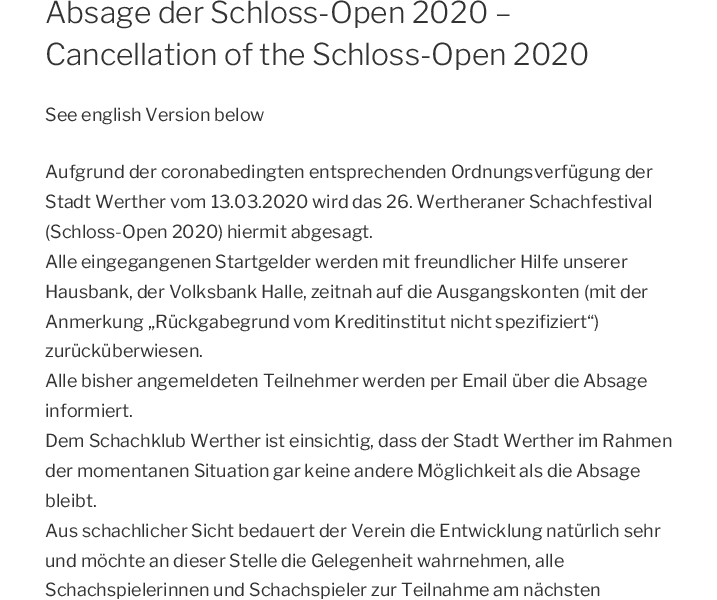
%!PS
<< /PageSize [717 600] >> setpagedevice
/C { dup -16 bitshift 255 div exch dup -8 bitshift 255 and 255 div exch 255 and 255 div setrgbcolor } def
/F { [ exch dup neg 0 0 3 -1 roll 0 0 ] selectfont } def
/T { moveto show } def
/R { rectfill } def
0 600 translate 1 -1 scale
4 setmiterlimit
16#FFFFFF C
0 0 717 600 R
/LibreFranklin-Thin 30 F
16#333333 C
(Absage der Schloss-Open 2020 –) 45 23 T
(Cancellation of the Schloss-Open 2020) 45 65 T
/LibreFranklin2-Thin 18 F
(See english Version below) 45 121 T
(Aufgrund der coronabedingten entsprechenden Ordnungsverfügung der) 45 178 T
(Stadt Werther vom 13.03.2020 wird das 26. Wertheraner Schachfestival) 45 208 T
(\(Schloss-Open 2020\) hiermit abgesagt.) 45 238 T
(Alle eingegangenen Startgelder werden mit freundlicher Hilfe unserer) 45 268 T
(Hausbank, der Volksbank Halle, zeitnah auf die Ausgangskonten \(mit der) 45 298 T
(Anmerkung „Rückgabegrund vom Kreditinstitut nicht spezifiziert“\)) 45 328 T
(zurücküberwiesen.) 45 357 T
(Alle bisher angemeldeten Teilnehmer werden per Email über die Absage) 45 387 T
(informiert.) 45 417 T
(Dem Schachklub Werther ist einsichtig, dass der Stadt Werther im Rahmen) 45 447 T
(der momentanen Situation gar keine andere Möglichkeit als die Absage) 45 477 T
(bleibt.) 45 507 T
(Aus schachlicher Sicht bedauert der Verein die Entwicklung natürlich sehr) 45 537 T
(und möchte an dieser Stelle die Gelegenheit wahrnehmen, alle) 45 567 T
(Schachspielerinnen und Schachspieler zur Teilnahme am nächsten) 45 596 T
showpage
